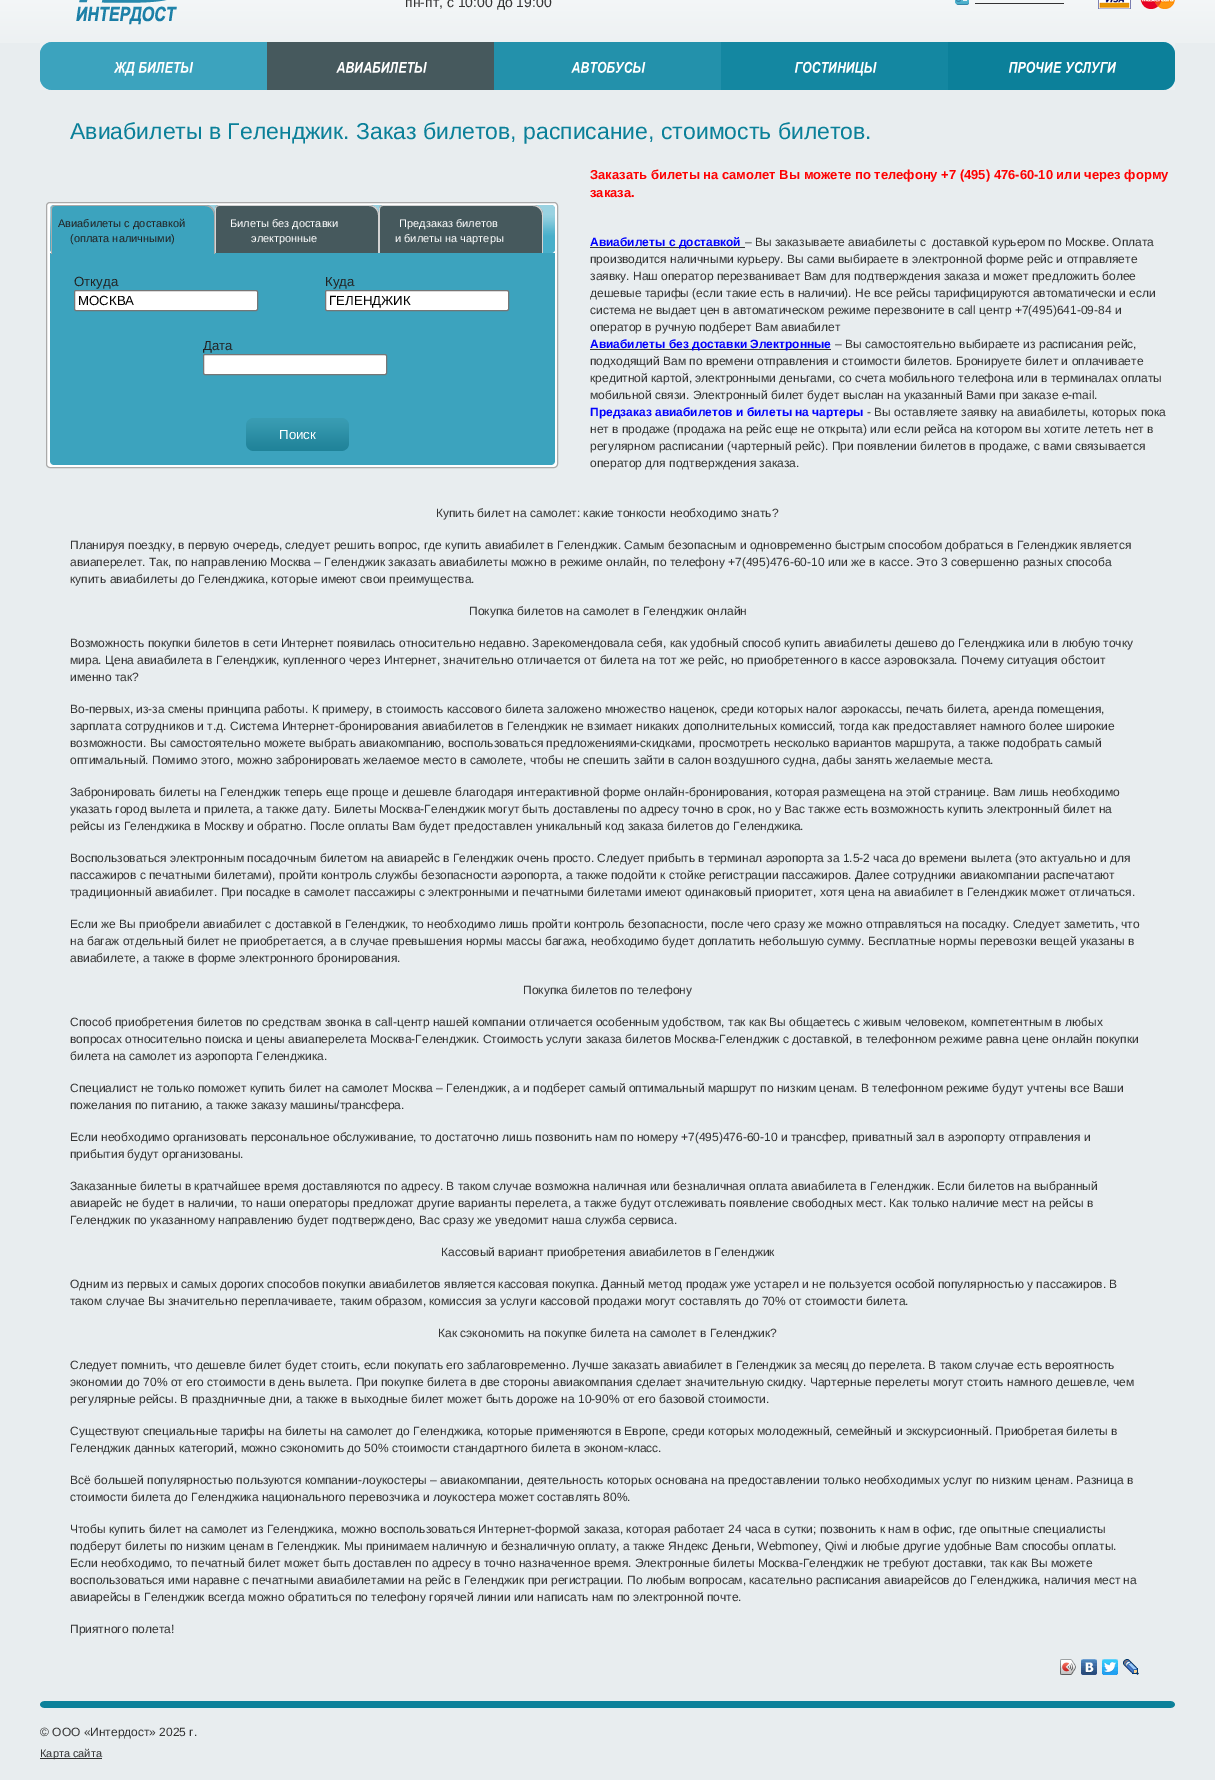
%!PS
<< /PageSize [1215 1780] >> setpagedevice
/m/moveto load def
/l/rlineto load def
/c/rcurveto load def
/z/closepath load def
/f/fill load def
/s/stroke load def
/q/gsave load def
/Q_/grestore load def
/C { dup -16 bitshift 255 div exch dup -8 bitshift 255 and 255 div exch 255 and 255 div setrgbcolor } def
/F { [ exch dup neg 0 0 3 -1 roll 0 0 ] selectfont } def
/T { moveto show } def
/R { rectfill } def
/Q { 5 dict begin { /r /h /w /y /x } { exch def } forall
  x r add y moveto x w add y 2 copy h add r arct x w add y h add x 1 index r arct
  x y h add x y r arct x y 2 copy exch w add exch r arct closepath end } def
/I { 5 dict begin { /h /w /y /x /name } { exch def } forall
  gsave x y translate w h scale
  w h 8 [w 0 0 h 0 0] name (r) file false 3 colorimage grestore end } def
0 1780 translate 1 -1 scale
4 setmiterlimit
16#E8EDEF C
0 0 1215 1780 R
(1.rgb) 0 0 1215 43 I
(2.rgb) 76 0 101 25 I
/LiberationSans-Regular 14 F
16#333333 C
(пн-пт, с 10:00 до 19:00) 405 7 T
(3.rgb) 955 0 14 5 I
975 3 89 1 R
(4.rgb) 1098 0 77 9 I
16#0C809A C
948 42 227 48 R
16#3CA3BE C
40 42 227 48 R
(5.rgb) 40 42 11 10 I
(6.rgb) 114 61 21 15 I
(7.rgb) 138 62 56 11 I
(8.rgb) 40 80 11 10 I
16#46595D C
267 42 227 48 R
(9.rgb) 336 62 91 11 I
16#2391AB C
494 42 227 48 R
(10.rgb) 571 61 75 12 I
16#1487A1 C
721 42 227 48 R
(11.rgb) 794 61 83 15 I
(12.rgb) 1164 42 11 11 I
(13.rgb) 1008 61 54 12 I
(14.rgb) 1066 61 51 12 I
(15.rgb) 1164 79 11 11 I
/LiberationSans-Regular 23 F
16#0A8099 C
(Авиабилеты в Геленджик. Заказ билетов, расписание, стоимость билетов.) 70 139 T
16#FFFFFF C
46.5 202.5 511 265 3.5 Q q f Q_
16#AAAAAA C
s
(16.rgb) 50 205 505 48 I
16#3CA3BE C
50 253 505 150 R
55 205 m 150 0 l 5.5 0 10 4.5 10 10 c 0 39 l -164 0 l 0 -45 l 0 -2 2 -4 4 -4 c z f
16#AAAAAA C
55 205 m 150 0 l 6 0 10 4 10 10 c 0 39 l -164 0 l 0 -45 l 0 -2 2 -4 4 -4 c z 55 206 m 150 0 l 5 0 9 4 9 9 c 0 39 l -162 0 l 0 -45 l 0 -2 1 -3 3 -3 c z eofill
/LiberationSans-Regular 11 F
16#222222 C
(Авиабилеты с доставкой) 58 227 T
(\(оплата наличными\)) 70 242 T
16#46595D C
219 205 m 150 0 l 5.5 0 10 4.5 10 10 c 0 38 l -164 0 l 0 -44 l 0 -2 2 -4 4 -4 c z f
16#D3D3D3 C
219 205 m 150 0 l 6 0 10 4 10 10 c 0 38 l -164 0 l 0 -44 l 0 -2 2 -4 4 -4 c z 219 206 m 150 0 l 5 0 9 4 9 9 c 0 38 l -162 0 l 0 -44 l 0 -2 1 -3 3 -3 c z eofill
16#FFFFFF C
(Билеты без доставки) 230 227 T
(электронные) 251 242 T
16#46595D C
383 205 m 150 0 l 5.5 0 10 4.5 10 10 c 0 38 l -164 0 l 0 -44 l 0 -2 2 -4 4 -4 c z f
16#D3D3D3 C
383 205 m 150 0 l 6 0 10 4 10 10 c 0 38 l -164 0 l 0 -44 l 0 -2 2 -4 4 -4 c z 383 206 m 150 0 l 5 0 9 4 9 9 c 0 38 l -162 0 l 0 -44 l 0 -2 1 -3 3 -3 c z eofill
16#FFFFFF C
(Предзаказ билетов) 399 227 T
(и билеты на чартеры) 395 242 T
/LiberationSans-Regular 13.25 F
16#222222 C
(Откуда) 74 286 T
16#FFFFFF C
74.5 290.5 183 20 1.5 Q q f Q_
16#767676 C
s
16#000000 C
(МОСКВА) 78 305 T
16#222222 C
(Куда) 325 286 T
16#FFFFFF C
325.5 290.5 183 20 1.5 Q q f Q_
16#767676 C
s
16#000000 C
(ГЕЛЕНДЖИК) 329 305 T
16#222222 C
(Дата) 203 350 T
16#FFFFFF C
203.5 354.5 183 20 1.5 Q q f Q_
16#767676 C
s
16#3CA3BE C
50 403 m 505 0 l 0 58 l 0 2 -2 4 -4 4 c -497 0 l -2 0 -4 -2 -4 -4 c z f
(17.rgb) 246 418 103 33 I
16#FFFFFF C
(Поиск) 279 439 T
/LiberationSans-Bold 13 F
16#FF0000 C
(Заказать билеты на самолет Вы можете по телефону +7 \(495\) 476-60-10 или через форму) 590 179 T
(заказа.) 590 197 T
16#333333 C
590 247 155 1 R
/LiberationSans-Bold 12 F
16#0000FF C
(Авиабилеты с доставкой) 590 246 T
/LiberationSans-Regular 12 F
16#333333 C
(– Вы заказываете авиабилеты с  доставкой курьером по Москве. Оплата) 745 246 T
(производится наличными курьеру. Вы сами выбираете в электронной форме рейс и отправляете) 590 263 T
(заявку. Наш оператор перезванивает Вам для подтверждения заказа и может предложить более) 590 280 T
(дешевые тарифы \(если такие есть в наличии\). Не все рейсы тарифицируются автоматически и если) 590 297 T
(система не выдает цен в автоматическом режиме перезвоните в call центр +7\(495\)641-09-84 и) 590 314 T
(оператор в ручную подберет Вам авиабилет) 590 331 T
590 349 241 1 R
/LiberationSans-Bold 12 F
16#0000FF C
(Авиабилеты без доставки Электронные) 590 348 T
/LiberationSans-Regular 12 F
16#333333 C
(– Вы самостоятельно выбираете из расписания рейс,) 835 348 T
(подходящий Вам по времени отправления и стоимости билетов. Бронируете билет и оплачиваете) 590 365 T
(кредитной картой, электронными деньгами, со счета мобильного телефона или в терминалах оплаты) 590 382 T
(мобильной связи. Электронный билет будет выслан на указанный Вами при заказе e-mail.) 590 399 T
/LiberationSans-Bold 12 F
16#0000FF C
(Предзаказ авиабилетов и билеты на чартеры) 590 416 T
/LiberationSans-Regular 12 F
16#333333 C
(- Вы оставляете заявку на авиабилеты, которых пока) 867 416 T
(нет в продаже \(продажа на рейс еще не открыта\) или если рейса на котором вы хотите лететь нет в) 590 433 T
(регулярном расписании \(чартерный рейс\). При появлении билетов в продаже, с вами связывается) 590 450 T
(оператор для подтверждения заказа.) 590 467 T
(Купить билет на самолет: какие тонкости необходимо знать?) 436 517 T
(Планируя поездку, в первую очередь, следует решить вопрос, где купить авиабилет в Геленджик. Самым безопасным и одновременно быстрым способом добраться в Геленджик является) 70 549 T
(авиаперелет. Так, по направлению Москва – Геленджик заказать авиабилеты можно в режиме онлайн, по телефону +7\(495\)476-60-10 или же в кассе. Это 3 совершенно разных способа) 70 566 T
(купить авиабилеты до Геленджика, которые имеют свои преимущества.) 70 583 T
(Покупка билетов на самолет в Геленджик онлайн) 469 615 T
(Возможность покупки билетов в сети Интернет появилась относительно недавно. Зарекомендовала себя, как удобный способ купить авиабилеты дешево до Геленджика или в любую точку) 70 647 T
(мира. Цена авиабилета в Геленджик, купленного через Интернет, значительно отличается от билета на тот же рейс, но приобретенного в кассе аэровокзала. Почему ситуация обстоит) 70 664 T
(именно так?) 70 681 T
(Во-первых, из-за смены принципа работы. К примеру, в стоимость кассового билета заложено множество наценок, среди которых налог аэрокассы, печать билета, аренда помещения,) 70 713 T
(зарплата сотрудников и т.д. Система Интернет-бронирования авиабилетов в Геленджик не взимает никаких дополнительных комиссий, тогда как предоставляет намного более широкие) 70 730 T
(возможности. Вы самостоятельно можете выбрать авиакомпанию, воспользоваться предложениями-скидками, просмотреть несколько вариантов маршрута, а также подобрать самый) 70 747 T
(оптимальный. Помимо этого, можно забронировать желаемое место в самолете, чтобы не спешить зайти в салон воздушного судна, дабы занять желаемые места.) 70 764 T
(Забронировать билеты на Геленджик теперь еще проще и дешевле благодаря интерактивной форме онлайн-бронирования, которая размещена на этой странице. Вам лишь необходимо) 70 796 T
(указать город вылета и прилета, а также дату. Билеты Москва-Геленджик могут быть доставлены по адресу точно в срок, но у Вас также есть возможность купить электронный билет на) 70 813 T
(рейсы из Геленджика в Москву и обратно. После оплаты Вам будет предоставлен уникальный код заказа билетов до Геленджика.) 70 830 T
(Воспользоваться электронным посадочным билетом на авиарейс в Геленджик очень просто. Следует прибыть в терминал аэропорта за 1.5-2 часа до времени вылета \(это актуально и для) 70 862 T
(пассажиров с печатными билетами\), пройти контроль службы безопасности аэропорта, а также подойти к стойке регистрации пассажиров. Далее сотрудники авиакомпании распечатают) 70 879 T
(традиционный авиабилет. При посадке в самолет пассажиры с электронными и печатными билетами имеют одинаковый приоритет, хотя цена на авиабилет в Геленджик может отличаться.) 70 896 T
(Если же Вы приобрели авиабилет с доставкой в Геленджик, то необходимо лишь пройти контроль безопасности, после чего сразу же можно отправляться на посадку. Следует заметить, что) 70 928 T
(на багаж отдельный билет не приобретается, а в случае превышения нормы массы багажа, необходимо будет доплатить небольшую сумму. Бесплатные нормы перевозки вещей указаны в) 70 945 T
(авиабилете, а также в форме электронного бронирования.) 70 962 T
(Покупка билетов по телефону) 523 994 T
(Способ приобретения билетов по средствам звонка в call-центр нашей компании отличается особенным удобством, так как Вы общаетесь с живым человеком, компетентным в любых) 70 1026 T
(вопросах относительно поиска и цены авиаперелета Москва-Геленджик. Стоимость услуги заказа билетов Москва-Геленджик с доставкой, в телефонном режиме равна цене онлайн покупки) 70 1043 T
(билета на самолет из аэропорта Геленджика.) 70 1060 T
(Специалист не только поможет купить билет на самолет Москва – Геленджик, а и подберет самый оптимальный маршрут по низким ценам. В телефонном режиме будут учтены все Ваши) 70 1092 T
(пожелания по питанию, а также заказу машины/трансфера.) 70 1109 T
(Если необходимо организовать персональное обслуживание, то достаточно лишь позвонить нам по номеру +7\(495\)476-60-10 и трансфер, приватный зал в аэропорту отправления и) 70 1141 T
(прибытия будут организованы.) 70 1158 T
(Заказанные билеты в кратчайшее время доставляются по адресу. В таком случае возможна наличная или безналичная оплата авиабилета в Геленджик. Если билетов на выбранный) 70 1190 T
(авиарейс не будет в наличии, то наши операторы предложат другие варианты перелета, а также будут отслеживать появление свободных мест. Как только наличие мест на рейсы в) 70 1207 T
(Геленджик по указанному направлению будет подтверждено, Вас сразу же уведомит наша служба сервиса.) 70 1224 T
(Кассовый вариант приобретения авиабилетов в Геленджик) 441 1256 T
(Одним из первых и самых дорогих способов покупки авиабилетов является кассовая покупка. Данный метод продаж уже устарел и не пользуется особой популярностью у пассажиров. В) 70 1288 T
(таком случае Вы значительно переплачиваете, таким образом, комиссия за услуги кассовой продажи могут составлять до 70% от стоимости билета.) 70 1305 T
(Как сэкономить на покупке билета на самолет в Геленджик?) 438 1337 T
(Следует помнить, что дешевле билет будет стоить, если покупать его заблаговременно. Лучше заказать авиабилет в Геленджик за месяц до перелета. В таком случае есть вероятность) 70 1369 T
(экономии до 70% от его стоимости в день вылета. При покупке билета в две стороны авиакомпания сделает значительную скидку. Чартерные перелеты могут стоить намного дешевле, чем) 70 1386 T
(регулярные рейсы. В праздничные дни, а также в выходные билет может быть дороже на 10-90% от его базовой стоимости.) 70 1403 T
(Существуют специальные тарифы на билеты на самолет до Геленджика, которые применяются в Европе, среди которых молодежный, семейный и экскурсионный. Приобретая билеты в) 70 1435 T
(Геленджик данных категорий, можно сэкономить до 50% стоимости стандартного билета в эконом-класс.) 70 1452 T
(Всё большей популярностью пользуются компании-лоукостеры – авиакомпании, деятельность которых основана на предоставлении только необходимых услуг по низким ценам. Разница в) 70 1484 T
(стоимости билета до Геленджика национального перевозчика и лоукостера может составлять 80%.) 70 1501 T
(Чтобы купить билет на самолет из Геленджика, можно воспользоваться Интернет-формой заказа, которая работает 24 часа в сутки; позвонить к нам в офис, где опытные специалисты) 70 1533 T
(подберут билеты по низким ценам в Геленджик. Мы принимаем наличную и безналичную оплату, а также Яндекс Деньги, Webmoney, Qiwi и любые другие удобные Вам способы оплаты.) 70 1550 T
(Если необходимо, то печатный билет может быть доставлен по адресу в точно назначенное время. Электронные билеты Москва-Геленджик не требуют доставки, так как Вы можете) 70 1567 T
(воспользоваться ими наравне с печатными авиабилетамии на рейс в Геленджик при регистрации. По любым вопросам, касательно расписания авиарейсов до Геленджика, наличия мест на) 70 1584 T
(авиарейсы в Геленджик всегда можно обратиться по телефону горячей линии или написать нам по электронной почте.) 70 1601 T
(Приятного полета!) 70 1633 T
(18.rgb) 1060 1659 16 16 I
(19.rgb) 1060 1659 16 16 I
(20.rgb) 1081 1659 16 16 I
(21.rgb) 1102 1659 16 16 I
(22.rgb) 1123 1659 16 16 I
16#0C819A C
40 1701 1135 7 R
(23.rgb) 40 1701 4 7 I
(24.rgb) 1171 1701 4 7 I
16#333333 C
(© ООО «Интердост» 2025 г.) 40 1736 T
40 1758 62 1 R
/LiberationSans-Regular 11 F
(Карта сайта) 40 1757 T
showpage
